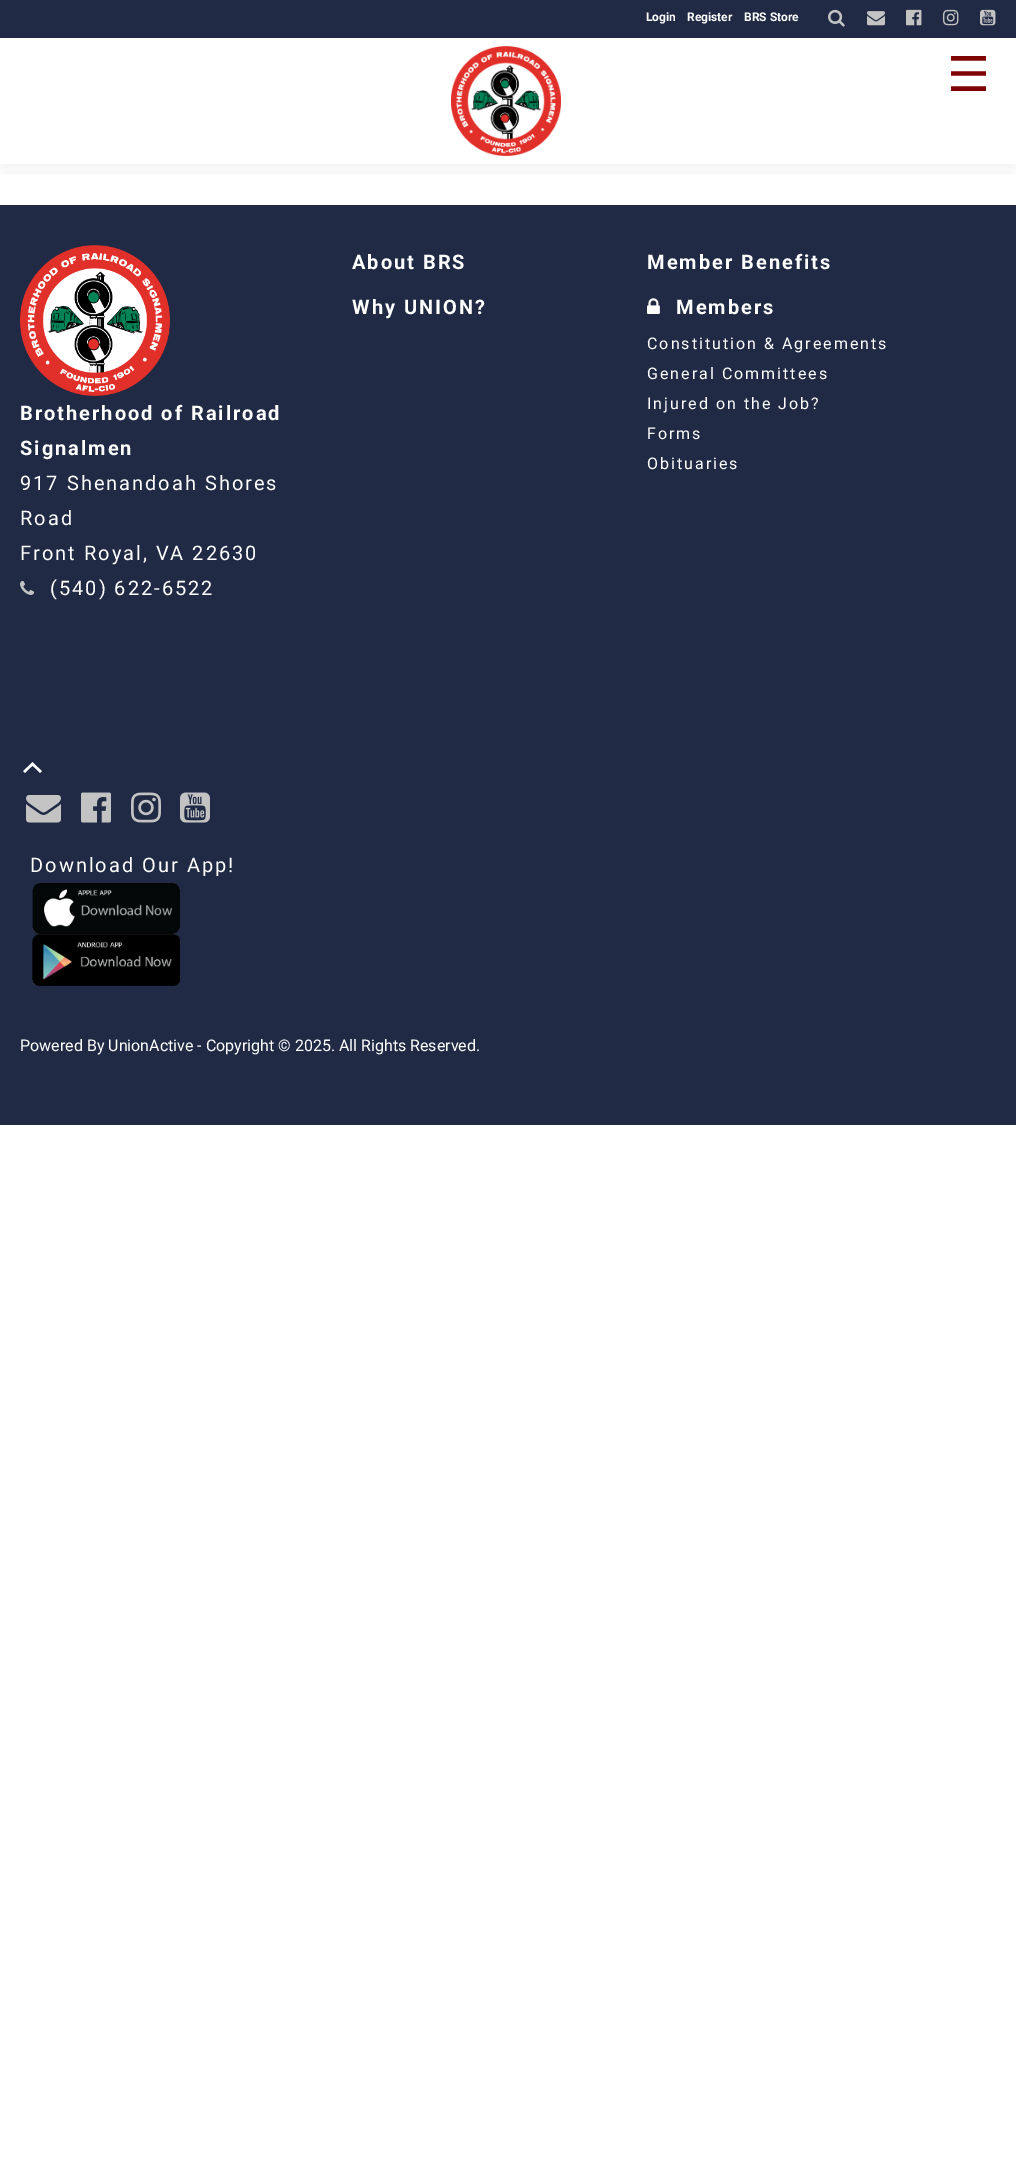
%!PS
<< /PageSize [1016 2158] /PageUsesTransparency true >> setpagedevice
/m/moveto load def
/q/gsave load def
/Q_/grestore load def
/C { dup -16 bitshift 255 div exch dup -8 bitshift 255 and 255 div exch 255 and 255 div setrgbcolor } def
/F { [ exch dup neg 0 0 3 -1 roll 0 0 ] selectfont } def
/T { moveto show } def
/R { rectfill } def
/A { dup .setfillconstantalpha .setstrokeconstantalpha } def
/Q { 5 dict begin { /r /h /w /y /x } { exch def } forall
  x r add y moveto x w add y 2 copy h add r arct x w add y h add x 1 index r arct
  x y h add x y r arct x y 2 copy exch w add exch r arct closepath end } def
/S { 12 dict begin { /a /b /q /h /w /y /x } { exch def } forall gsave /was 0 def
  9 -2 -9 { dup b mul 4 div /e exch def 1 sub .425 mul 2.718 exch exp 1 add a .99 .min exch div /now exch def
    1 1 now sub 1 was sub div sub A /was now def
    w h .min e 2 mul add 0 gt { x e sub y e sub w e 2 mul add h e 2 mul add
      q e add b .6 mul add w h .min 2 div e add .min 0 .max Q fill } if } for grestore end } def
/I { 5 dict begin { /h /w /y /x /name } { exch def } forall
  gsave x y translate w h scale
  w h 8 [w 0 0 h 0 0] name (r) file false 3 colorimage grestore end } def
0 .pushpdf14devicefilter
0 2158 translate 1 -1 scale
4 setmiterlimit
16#FFFFFF C
0 0 1016 2158 R
16#202A44 C
0 205 1016 920 R
q
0 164 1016 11 rectclip
16#000000 C
0 6 1016 164 0 12.5 .06 S
Q_
0 0 1016 38 R
/Roboto-Bold 12 F
16#FFFFFF C
(Login) 646 21 T
(Register) 687 21 T
(BRS Store) 744 21 T
(1.rgb) 828 9 17 18 I
(2.rgb) 867 11 18 15 I
(3.rgb) 906 9 16 17 I
(4.rgb) 943 9 16 17 I
(5.rgb) 980 9 16 17 I
(6.rgb) 451 46 110 110 I
/DejaVuSans-Regular 48 F
16#7E0202 C
(☰) 947 91 T
/Roboto-Bold 20 F
16#FFFFFF C
352 269 m 2 0 (About BRS) ashow
647 269 m 2 0 (Member Benefits) ashow
352 314 m 2 0 (Why UNION?) ashow
(7.rgb) 647 298 13 16 I
676 314 m 2 0 (Members) ashow
/Roboto-Regular 16 F
647 349 m 2 0 (Constitution & Agreements) ashow
647 379 m 2 0 (General Committees) ashow
647 409 m 2 0 (Injured on the Job?) ashow
647 439 m 2 0 (Forms) ashow
647 469 m 2 0 (Obituaries) ashow
(8.rgb) 20 245 150 151 I
/Roboto-Bold 20 F
20 420 m 2 0 (Brotherhood of Railroad) ashow
20 455 m 2 0 (Signalmen) ashow
/Roboto-Regular 20 F
20 490 m 2 0 (917 Shenandoah Shores) ashow
20 525 m 2 0 (Road) ashow
20 560 m 2 0 (Front Royal, VA 22630) ashow
(9.rgb) 20 580 15 15 I
50 595 m 2 0 (\(540\) 622-6522) ashow
(10.rgb) 23 762 19 11 I
(11.rgb) 26 795 35 28 I
(12.rgb) 81 792 30 31 I
(13.rgb) 131 792 30 31 I
(14.rgb) 180 792 30 31 I
30 872 m 2 0 (Download Our App!) ashow
(15.rgb) 32 883 148 51 I
(16.rgb) 32 934 148 52 I
/Roboto-Regular 16 F
(Powered By UnionActive - Copyright © 2025. All Rights Reserved.) 20 1051 T
.poppdf14devicefilter showpage
